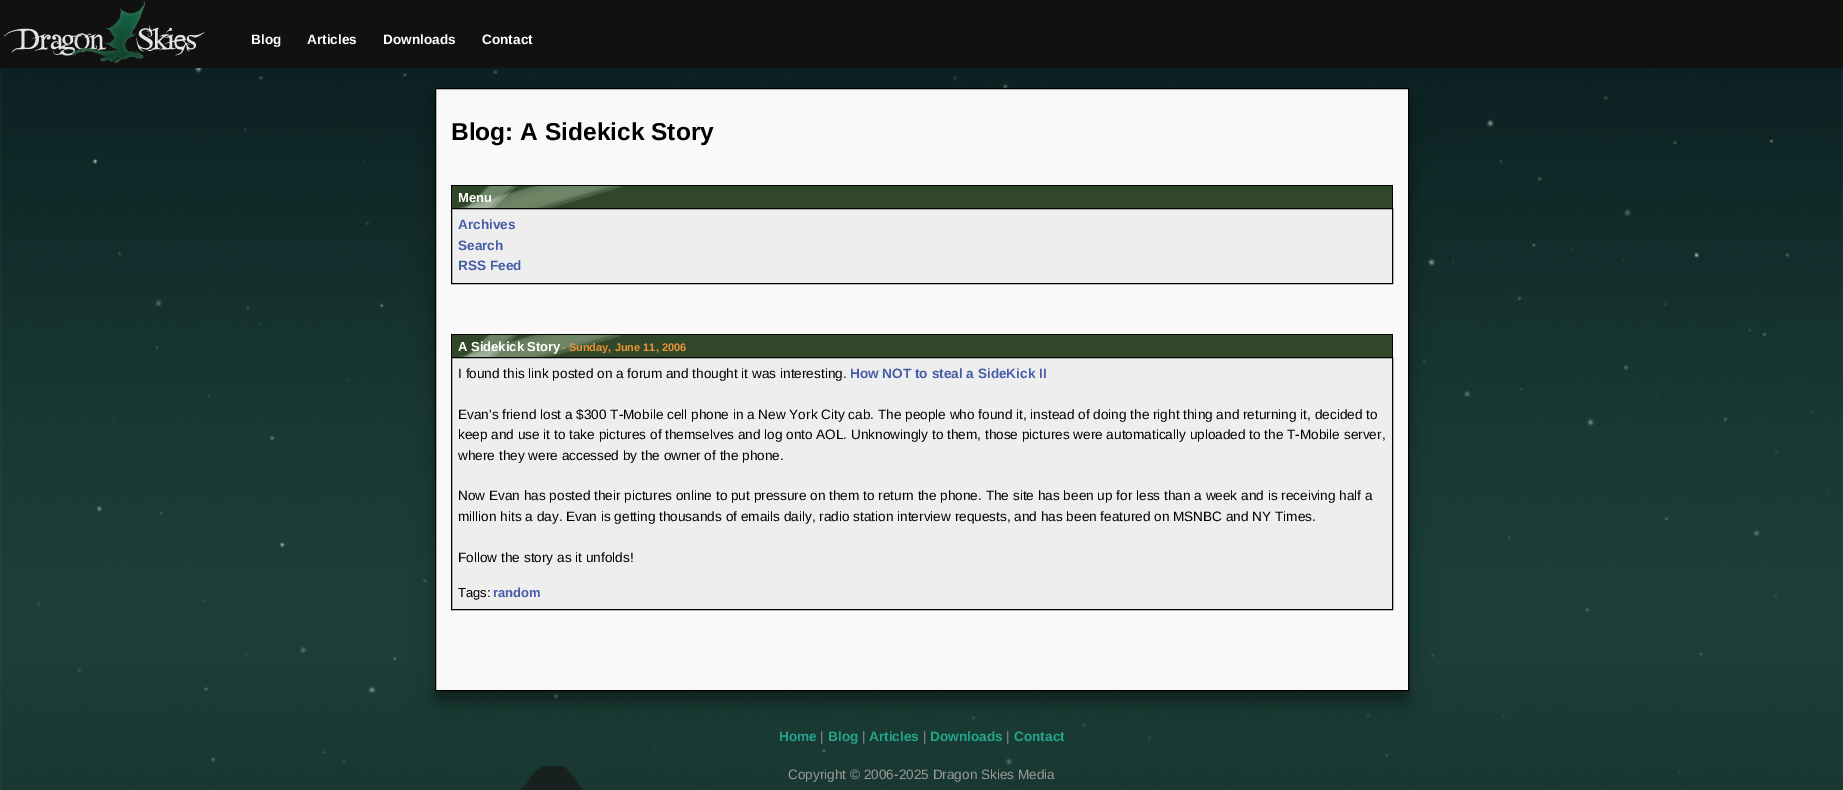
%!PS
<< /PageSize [1843 790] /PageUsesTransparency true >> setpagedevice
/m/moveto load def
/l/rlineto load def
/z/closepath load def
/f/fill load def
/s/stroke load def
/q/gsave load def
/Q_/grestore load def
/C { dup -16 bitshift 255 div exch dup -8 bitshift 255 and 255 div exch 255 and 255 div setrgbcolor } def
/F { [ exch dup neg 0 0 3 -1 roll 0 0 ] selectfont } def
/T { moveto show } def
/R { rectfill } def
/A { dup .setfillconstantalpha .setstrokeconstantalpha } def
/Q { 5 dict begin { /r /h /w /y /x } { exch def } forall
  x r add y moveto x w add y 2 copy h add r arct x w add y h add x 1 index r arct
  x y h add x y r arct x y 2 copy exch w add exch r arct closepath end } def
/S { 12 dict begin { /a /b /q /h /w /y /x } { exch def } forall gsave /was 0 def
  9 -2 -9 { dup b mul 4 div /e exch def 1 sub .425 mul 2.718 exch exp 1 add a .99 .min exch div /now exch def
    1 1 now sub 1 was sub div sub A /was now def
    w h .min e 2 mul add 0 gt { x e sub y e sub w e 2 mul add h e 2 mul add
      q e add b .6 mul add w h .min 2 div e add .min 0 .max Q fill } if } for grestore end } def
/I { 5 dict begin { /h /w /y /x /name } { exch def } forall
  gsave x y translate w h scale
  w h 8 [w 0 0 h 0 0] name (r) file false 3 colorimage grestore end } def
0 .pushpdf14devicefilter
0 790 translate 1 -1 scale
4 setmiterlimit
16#FFFFFF C
0 0 1843 790 R
(1.rgb) 0 68 1843 722 I
16#111111 C
0 0 1843 68 R
(2.rgb) 3 1 202 62 I
/LiberationSans-Bold 13.6 F
16#FFFFFF C
(Blog) 251 44 T
(Articles) 307 44 T
(Downloads) 383 44 T
(Contact) 482 44 T
16#000000 C
435 98 974 603 0 5 .22 S
435 102 974 603 0 14 .25 S
16#F9F9F9 C
435.5 88.5 m 973 0 l 0 602 l -973 0 l z q f Q_
16#000000 C
s
/LiberationSans-Bold 24.5 F
(Blog: A Sidekick Story) 451 140 T
16#30472A C
452 186 940 22 R
(3.rgb) 458 186 164 22 I
16#000000 C
451 185 942 1 R
1392 185 1 23 R
451 185 1 23 R
/LiberationSans-Bold 13 F
16#FFFFFF C
(Menu) 458 202 T
16#EEEEEE C
451.5 208.5 m 941 0 l 0 75 l -941 0 l z q f Q_
16#000000 C
s
/LiberationSans-Bold 13.6 F
16#455DA8 C
(Archives) 458 229 T
(Search) 458 250 T
(RSS Feed) 458 270 T
16#30472A C
452 335 940 22 R
(3.rgb) 458 335 164 22 I
16#000000 C
451 334 942 1 R
1392 334 1 23 R
451 334 1 23 R
/LiberationSans-Bold 13 F
16#FFFFFF C
(A Sidekick Story) 458 351 T
/LiberationSans-Bold 11 F
16#EB9436 C
(- Sunday, June 11, 2006) 562 351 T
16#EEEEEE C
451.5 357.5 m 941 0 l 0 252 l -941 0 l z q f Q_
16#000000 C
s
/LiberationSans-Regular 13.6 F
(I found this link posted on a forum and thought it was interesting.) 458 378 T
/LiberationSans-Bold 13.6 F
16#455DA8 C
(How NOT to steal a SideKick II) 850 378 T
/LiberationSans-Regular 13.6 F
16#000000 C
(Evan's friend lost a $300 T-Mobile cell phone in a New York City cab. The people who found it, instead of doing the right thing and returning it, decided to) 458 419 T
(keep and use it to take pictures of themselves and log onto AOL. Unknowingly to them, those pictures were automatically uploaded to the T-Mobile server,) 458 439 T
(where they were accessed by the owner of the phone.) 458 460 T
(Now Evan has posted their pictures online to put pressure on them to return the phone. The site has been up for less than a week and is receiving half a) 458 500 T
(million hits a day. Evan is getting thousands of emails daily, radio station interview requests, and has been featured on MSNBC and NY Times.) 458 521 T
(Follow the story as it unfolds!) 458 562 T
/LiberationSans-Regular 13 F
(Tags:) 458 597 T
/LiberationSans-Bold 13 F
16#455DA8 C
(random) 493 597 T
/LiberationSans-Bold 13.6 F
16#24A58B C
(Home) 779 741 T
/LiberationSans-Regular 13.6 F
16#999999 C
(|) 820 741 T
/LiberationSans-Bold 13.6 F
16#24A58B C
(Blog) 828 741 T
/LiberationSans-Regular 13.6 F
16#999999 C
(|) 862 741 T
/LiberationSans-Bold 13.6 F
16#24A58B C
(Articles) 869 741 T
/LiberationSans-Regular 13.6 F
16#999999 C
(|) 923 741 T
/LiberationSans-Bold 13.6 F
16#24A58B C
(Downloads) 930 741 T
/LiberationSans-Regular 13.6 F
16#999999 C
(|) 1006 741 T
/LiberationSans-Bold 13.6 F
16#24A58B C
(Contact) 1014 741 T
/LiberationSans-Regular 13.6 F
16#999999 C
(Copyright © 2006-2025 Dragon Skies Media) 788 779 T
.poppdf14devicefilter showpage
